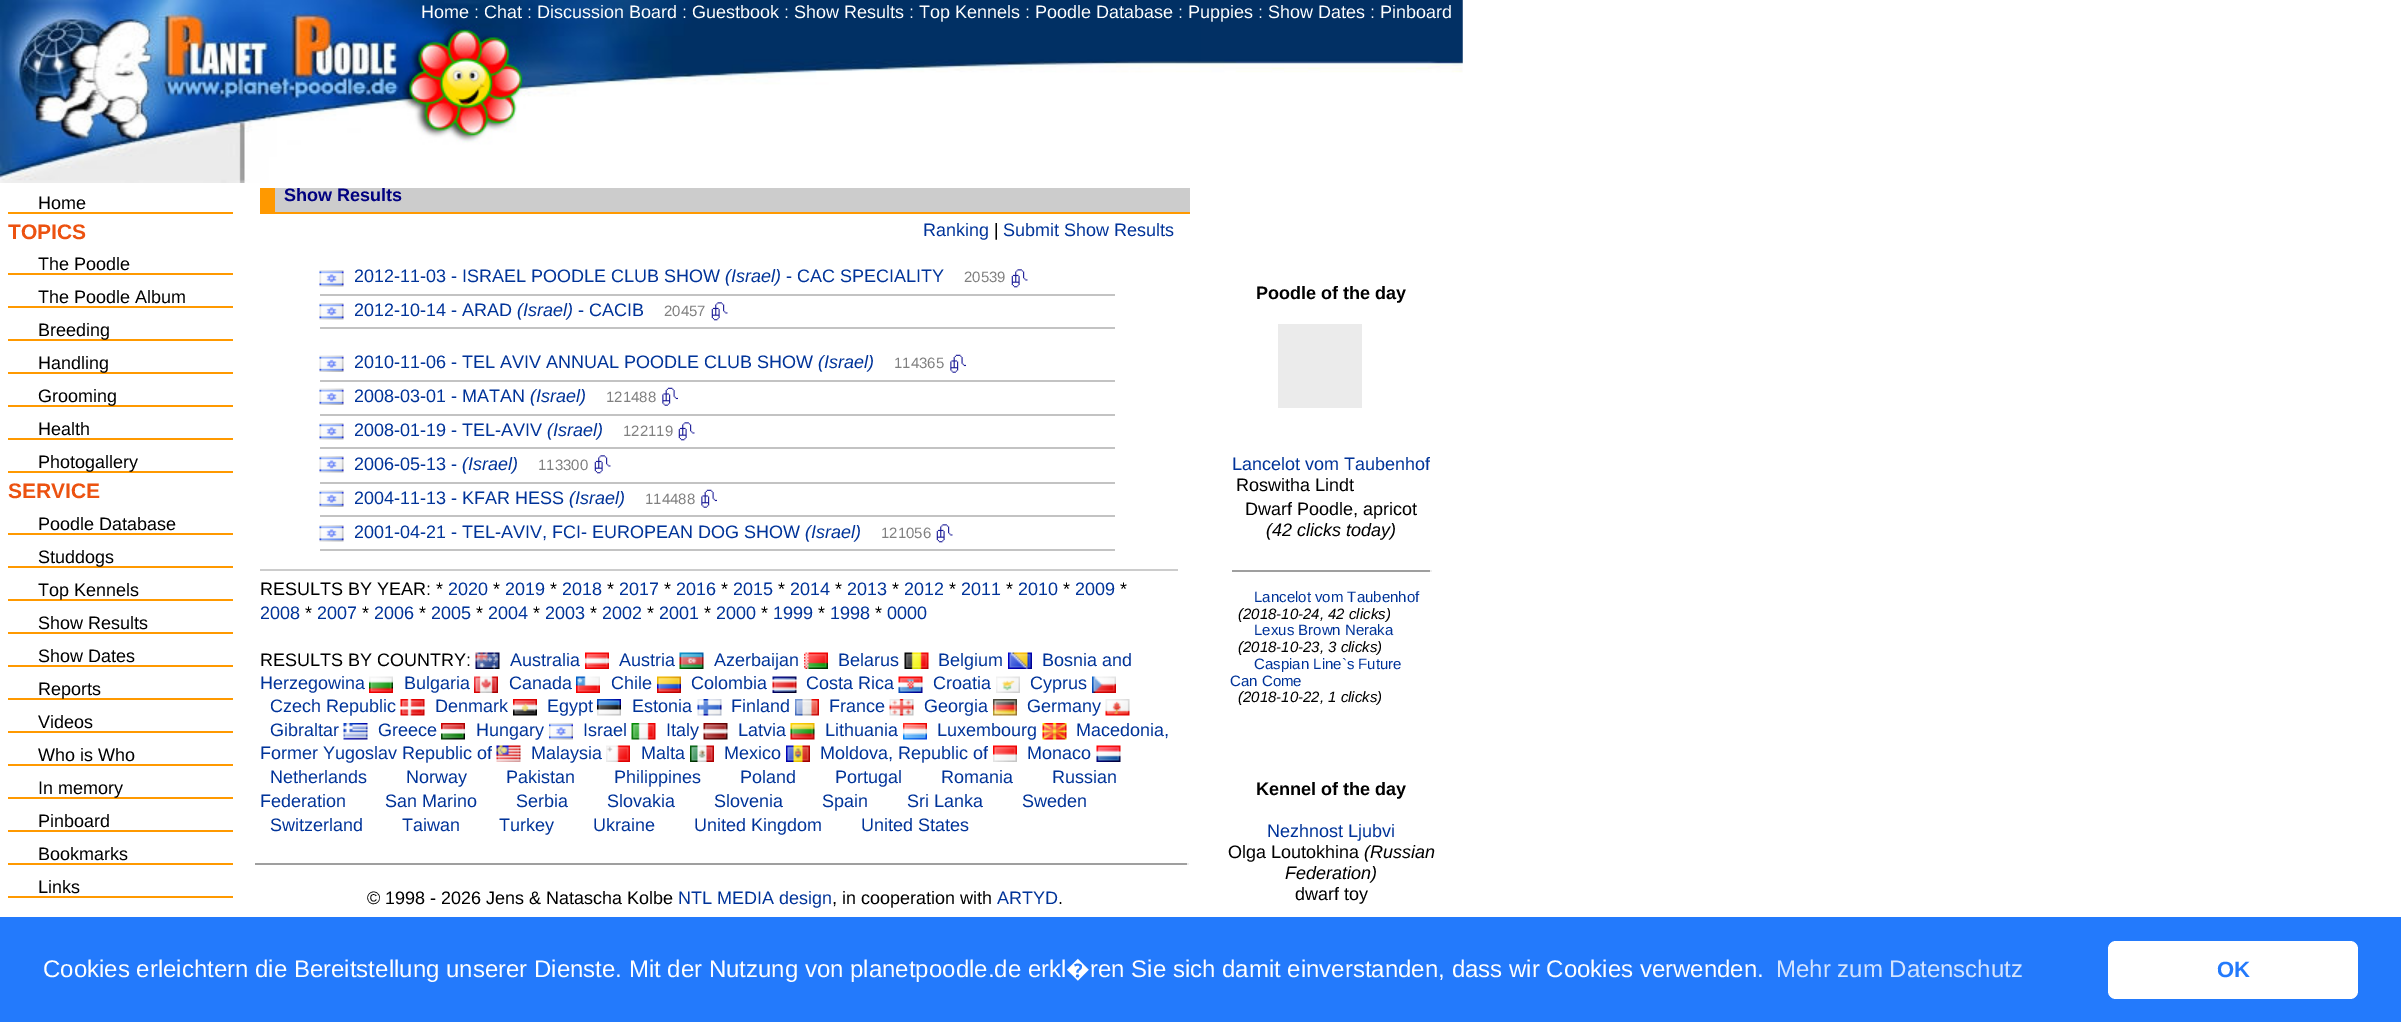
%!PS
<< /PageSize [2401 1022] >> setpagedevice
/f/fill load def
/C { dup -16 bitshift 255 div exch dup -8 bitshift 255 and 255 div exch 255 and 255 div setrgbcolor } def
/F { [ exch dup neg 0 0 3 -1 roll 0 0 ] selectfont } def
/T { moveto show } def
/R { rectfill } def
/Q { 5 dict begin { /r /h /w /y /x } { exch def } forall
  x r add y moveto x w add y 2 copy h add r arct x w add y h add x 1 index r arct
  x y h add x y r arct x y 2 copy exch w add exch r arct closepath end } def
/I { 5 dict begin { /h /w /y /x /name } { exch def } forall
  gsave x y translate w h scale
  w h 8 [w 0 0 h 0 0] name (r) file false 3 colorimage grestore end } def
0 1022 translate 1 -1 scale
4 setmiterlimit
16#FFFFFF C
0 0 2401 1022 R
(1.rgb) 0 0 1463 183 I
(2.rgb) 1462 0 1 64 I
/LiberationSans-Regular 18 F
(Home : Chat : Discussion Board : Guestbook : Show Results : Top Kennels : Poodle Database : Puppies : Show Dates : Pinboard) 421 18 T
16#FF9900 C
8 212 225 2 R
16#000000 C
(Home) 38 209 T
/LiberationSans-Bold 21 F
16#EC5210 C
(TOPICS) 8 239 T
16#FF9900 C
8 273 225 2 R
/LiberationSans-Regular 18 F
16#000000 C
(The Poodle) 38 270 T
16#FF9900 C
8 306 225 2 R
16#000000 C
(The Poodle Album) 38 303 T
16#FF9900 C
8 339 225 2 R
16#000000 C
(Breeding) 38 336 T
16#FF9900 C
8 372 225 2 R
16#000000 C
(Handling) 38 369 T
16#FF9900 C
8 405 225 2 R
16#000000 C
(Grooming) 38 402 T
16#FF9900 C
8 438 225 2 R
16#000000 C
(Health) 38 435 T
16#FF9900 C
8 471 225 2 R
16#000000 C
(Photogallery) 38 468 T
/LiberationSans-Bold 21 F
16#EC5210 C
(SERVICE) 8 498 T
16#FF9900 C
8 533 225 2 R
/LiberationSans-Regular 18 F
16#000000 C
(Poodle Database) 38 530 T
16#FF9900 C
8 566 225 2 R
16#000000 C
(Studdogs) 38 563 T
16#FF9900 C
8 599 225 2 R
16#000000 C
(Top Kennels) 38 596 T
16#FF9900 C
8 632 225 2 R
16#000000 C
(Show Results) 38 629 T
16#FF9900 C
8 665 225 2 R
16#000000 C
(Show Dates) 38 662 T
16#FF9900 C
8 698 225 2 R
16#000000 C
(Reports) 38 695 T
16#FF9900 C
8 731 225 2 R
16#000000 C
(Videos) 38 728 T
16#FF9900 C
8 764 225 2 R
16#000000 C
(Who is Who) 38 761 T
16#FF9900 C
8 797 225 2 R
16#000000 C
(In memory) 38 794 T
16#FF9900 C
8 830 225 2 R
16#000000 C
(Pinboard) 38 827 T
16#FF9900 C
8 863 225 2 R
16#000000 C
(Bookmarks) 38 860 T
16#FF9900 C
8 896 225 2 R
16#000000 C
(Links) 38 893 T
16#CCCCCC C
275 188 915 24 R
16#FF9900 C
260 212 930 2 R
260 188 15 24 R
/LiberationSans-Bold 18 F
16#000080 C
(Show Results) 284 201 T
/LiberationSans-Regular 18 F
16#003399 C
(Ranking) 923 236 T
16#000000 C
(|) 994 236 T
16#003399 C
(Submit Show Results) 1003 236 T
16#C3C3C3 C
320 294 795 2 R
(3.rgb) 319 270 25 17 I
16#003399 C
(2012-11-03 - ISRAEL POODLE CLUB SHOW) 354 282 T
/LiberationSans-Italic 18 F
(\(Israel\)) 725 282 T
/LiberationSans-Regular 18 F
(- CAC SPECIALITY) 786 282 T
/LiberationSans-Regular 15 F
16#808080 C
(20539) 964 282 T
(4.rgb) 1011 269 17 19 I
16#C3C3C3 C
320 327 795 2 R
(3.rgb) 319 303 25 17 I
/LiberationSans-Regular 18 F
16#003399 C
(2012-10-14 - ARAD) 354 316 T
/LiberationSans-Italic 18 F
(\(Israel\)) 517 316 T
/LiberationSans-Regular 18 F
(- CACIB) 578 316 T
/LiberationSans-Regular 15 F
16#808080 C
(20457) 664 316 T
(5.rgb) 711 302 17 19 I
16#C3C3C3 C
320 380 795 2 R
(6.rgb) 319 355 25 17 I
/LiberationSans-Regular 18 F
16#003399 C
(2010-11-06 - TEL AVIV ANNUAL POODLE CLUB SHOW) 354 368 T
/LiberationSans-Italic 18 F
(\(Israel\)) 818 368 T
/LiberationSans-Regular 15 F
16#808080 C
(114365) 894 368 T
(7.rgb) 950 354 16 19 I
16#C3C3C3 C
320 414 795 2 R
(6.rgb) 319 388 25 17 I
/LiberationSans-Regular 18 F
16#003399 C
(2008-03-01 - MATAN) 354 402 T
/LiberationSans-Italic 18 F
(\(Israel\)) 530 402 T
/LiberationSans-Regular 15 F
16#808080 C
(121488) 606 402 T
(8.rgb) 662 387 16 19 I
16#C3C3C3 C
320 447 795 2 R
(3.rgb) 319 423 25 17 I
/LiberationSans-Regular 18 F
16#003399 C
(2008-01-19 - TEL-AVIV) 354 436 T
/LiberationSans-Italic 18 F
(\(Israel\)) 547 436 T
/LiberationSans-Regular 15 F
16#808080 C
(122119) 623 436 T
(5.rgb) 678 422 17 19 I
16#C3C3C3 C
320 482 795 2 R
(3.rgb) 319 456 25 17 I
/LiberationSans-Regular 18 F
16#003399 C
(2006-05-13 -) 354 470 T
/LiberationSans-Italic 18 F
(\(Israel\)) 462 470 T
/LiberationSans-Regular 15 F
16#808080 C
(113300) 538 470 T
(5.rgb) 594 455 17 19 I
16#C3C3C3 C
320 515 795 2 R
(6.rgb) 319 490 25 17 I
/LiberationSans-Regular 18 F
16#003399 C
(2004-11-13 - KFAR HESS) 354 504 T
/LiberationSans-Italic 18 F
(\(Israel\)) 569 504 T
/LiberationSans-Regular 15 F
16#808080 C
(114488) 645 504 T
(9.rgb) 701 489 16 19 I
16#C3C3C3 C
320 549 795 2 R
(3.rgb) 319 525 25 17 I
/LiberationSans-Regular 18 F
16#003399 C
(2001-04-21 - TEL-AVIV, FCI- EUROPEAN DOG SHOW) 354 538 T
/LiberationSans-Italic 18 F
(\(Israel\)) 805 538 T
/LiberationSans-Regular 15 F
16#808080 C
(121056) 881 538 T
(4.rgb) 936 524 17 19 I
16#CCCCCC C
260 569 918 2 R
/LiberationSans-Regular 18 F
16#000000 C
(RESULTS BY YEAR: *) 260 595 T
16#003399 C
(2020) 448 595 T
16#000000 C
(*) 493 595 T
16#003399 C
(2019) 505 595 T
16#000000 C
(*) 550 595 T
16#003399 C
(2018) 562 595 T
16#000000 C
(*) 607 595 T
16#003399 C
(2017) 619 595 T
16#000000 C
(*) 664 595 T
16#003399 C
(2016) 676 595 T
16#000000 C
(*) 721 595 T
16#003399 C
(2015) 733 595 T
16#000000 C
(*) 778 595 T
16#003399 C
(2014) 790 595 T
16#000000 C
(*) 835 595 T
16#003399 C
(2013) 847 595 T
16#000000 C
(*) 892 595 T
16#003399 C
(2012) 904 595 T
16#000000 C
(*) 949 595 T
16#003399 C
(2011) 961 595 T
16#000000 C
(*) 1006 595 T
16#003399 C
(2010) 1018 595 T
16#000000 C
(*) 1063 595 T
16#003399 C
(2009) 1075 595 T
16#000000 C
(*) 1120 595 T
16#003399 C
(2008) 260 619 T
16#000000 C
(*) 305 619 T
16#003399 C
(2007) 317 619 T
16#000000 C
(*) 362 619 T
16#003399 C
(2006) 374 619 T
16#000000 C
(*) 419 619 T
16#003399 C
(2005) 431 619 T
16#000000 C
(*) 476 619 T
16#003399 C
(2004) 488 619 T
16#000000 C
(*) 533 619 T
16#003399 C
(2003) 545 619 T
16#000000 C
(*) 590 619 T
16#003399 C
(2002) 602 619 T
16#000000 C
(*) 647 619 T
16#003399 C
(2001) 659 619 T
16#000000 C
(*) 704 619 T
16#003399 C
(2000) 716 619 T
16#000000 C
(*) 761 619 T
16#003399 C
(1999) 773 619 T
16#000000 C
(*) 818 619 T
16#003399 C
(1998) 830 619 T
16#000000 C
(*) 875 619 T
16#003399 C
(0000) 887 619 T
16#000000 C
(RESULTS BY COUNTRY:) 260 666 T
(10.rgb) 475 652 25 17 I
16#003399 C
(Australia) 510 666 T
(11.rgb) 585 652 24 17 I
(Austria) 619 666 T
(12.rgb) 679 652 25 17 I
(Azerbaijan) 714 666 T
(13.rgb) 804 652 24 17 I
(Belarus) 838 666 T
(14.rgb) 904 652 25 17 I
(Belgium) 938 666 T
(15.rgb) 1008 652 24 17 I
(Bosnia and) 1042 666 T
(Herzegowina) 260 689 T
(16.rgb) 369 676 24 17 I
(Bulgaria) 404 689 T
(17.rgb) 474 676 24 17 I
(Canada) 509 689 T
(18.rgb) 576 676 24 17 I
(Chile) 611 689 T
(19.rgb) 657 676 24 17 I
(Colombia) 691 689 T
(20.rgb) 772 676 25 17 I
(Costa Rica) 806 689 T
(21.rgb) 898 676 25 17 I
(Croatia) 933 689 T
(22.rgb) 996 676 24 17 I
(Cyprus) 1030 689 T
(23.rgb) 1092 676 24 17 I
(Czech Republic) 270 712 T
(24.rgb) 400 699 25 17 I
(Denmark) 435 712 T
(25.rgb) 513 699 24 17 I
(Egypt) 547 712 T
(26.rgb) 597 699 24 17 I
(Estonia) 632 712 T
(27.rgb) 697 699 25 17 I
(Finland) 731 712 T
(28.rgb) 795 699 24 17 I
(France) 829 712 T
(29.rgb) 889 699 25 17 I
(Georgia) 924 712 T
(30.rgb) 993 699 24 17 I
(Germany) 1027 712 T
(31.rgb) 1105 699 25 17 I
(Gibraltar) 270 736 T
(32.rgb) 343 723 25 17 I
(Greece) 378 736 T
(33.rgb) 441 723 24 17 I
(Hungary) 476 736 T
(34.rgb) 549 723 24 17 I
(Israel) 583 736 T
(35.rgb) 631 723 25 17 I
(Italy) 666 736 T
(36.rgb) 703 723 25 17 I
(Latvia) 738 736 T
(37.rgb) 790 723 25 17 I
(Lithuania) 825 736 T
(38.rgb) 903 723 24 17 I
(Luxembourg) 937 736 T
(39.rgb) 1042 723 25 17 I
(Macedonia,) 1076 736 T
(Former Yugoslav Republic of) 260 759 T
(40.rgb) 496 745 25 17 I
(Malaysia) 531 759 T
(41.rgb) 606 745 24 17 I
(Malta) 641 759 T
(42.rgb) 690 745 24 17 I
(Mexico) 724 759 T
(43.rgb) 786 745 24 17 I
(Moldova, Republic of) 820 759 T
(44.rgb) 993 745 24 17 I
(Monaco) 1027 759 T
(45.rgb) 1096 745 25 17 I
(Netherlands) 270 783 T
(Norway) 406 783 T
(Pakistan) 506 783 T
(Philippines) 614 783 T
(Poland) 740 783 T
(Portugal) 835 783 T
(Romania) 941 783 T
(Russian) 1052 783 T
(Federation) 260 807 T
(San Marino) 385 807 T
(Serbia) 516 807 T
(Slovakia) 607 807 T
(Slovenia) 714 807 T
(Spain) 822 807 T
(Sri Lanka) 907 807 T
(Sweden) 1022 807 T
(Switzerland) 270 831 T
(Taiwan) 402 831 T
(Turkey) 499 831 T
(Ukraine) 593 831 T
(United Kingdom) 694 831 T
(United States) 861 831 T
16#9F9F9F C
255 863 933 2 R
16#EEEEEE C
1187 863 2 2 R
16#000000 C
(© 1998 - 2026 Jens & Natascha Kolbe) 367 904 T
16#003399 C
(NTL MEDIA design) 678 904 T
16#000000 C
(, in cooperation with) 832 904 T
16#003399 C
(ARTYD) 997 904 T
16#000000 C
(.) 1058 904 T
/LiberationSans-Bold 18 F
(Poodle of the day) 1256 299 T
16#EBEBEB C
1278 324 84 84 R
/LiberationSans-Regular 18 F
16#003399 C
(Lancelot vom Taubenhof) 1232 470 T
16#000000 C
(Roswitha Lindt) 1236 491 T
(Dwarf Poodle, apricot) 1245 515 T
/LiberationSans-Italic 18 F
(\(42 clicks today\)) 1266 536 T
16#9F9F9F C
1232 570 199 2 R
16#EEEEEE C
1430 570 2 2 R
/LiberationSans-Regular 15 F
16#003399 C
(Lancelot vom Taubenhof) 1254 602 T
/LiberationSans-Italic 15 F
16#000000 C
(\(2018-10-24, 42 clicks\)) 1238 619 T
/LiberationSans-Regular 15 F
16#003399 C
(Lexus Brown Neraka) 1254 635 T
/LiberationSans-Italic 15 F
16#000000 C
(\(2018-10-23, 3 clicks\)) 1238 652 T
/LiberationSans-Regular 15 F
16#003399 C
(Caspian Line`s Future) 1254 669 T
(Can Come) 1230 686 T
/LiberationSans-Italic 15 F
16#000000 C
(\(2018-10-22, 1 clicks\)) 1238 702 T
/LiberationSans-Bold 18 F
(Kennel of the day) 1256 795 T
/LiberationSans-Regular 18 F
16#003399 C
(Nezhnost Ljubvi) 1267 837 T
16#000000 C
(Olga Loutokhina) 1228 858 T
/LiberationSans-Italic 18 F
(\(Russian) 1364 858 T
(Federation\)) 1285 879 T
/LiberationSans-Regular 18 F
(dwarf toy) 1295 900 T
16#237AFC C
0 917 2401 105 R
/LiberationSans-Regular 24 F
16#FFFFFF C
(Cookies erleichtern die Bereitstellung unserer Dienste. Mit der Nutzung von planetpoodle.de erkl) 43 977 T
/NotoSans-Regular 24 F
(�) 1066 977 T
/LiberationSans-Regular 24 F
(ren Sie sich damit einverstanden, dass wir Cookies verwenden.) 1090 977 T
16#D3E4FE C
(Mehr zum Datenschutz) 1776 977 T
16#FFFFFF C
2108 941 250 58 8 Q f
/LiberationSans-Bold 22 F
16#237AFC C
(OK) 2217 977 T
showpage
